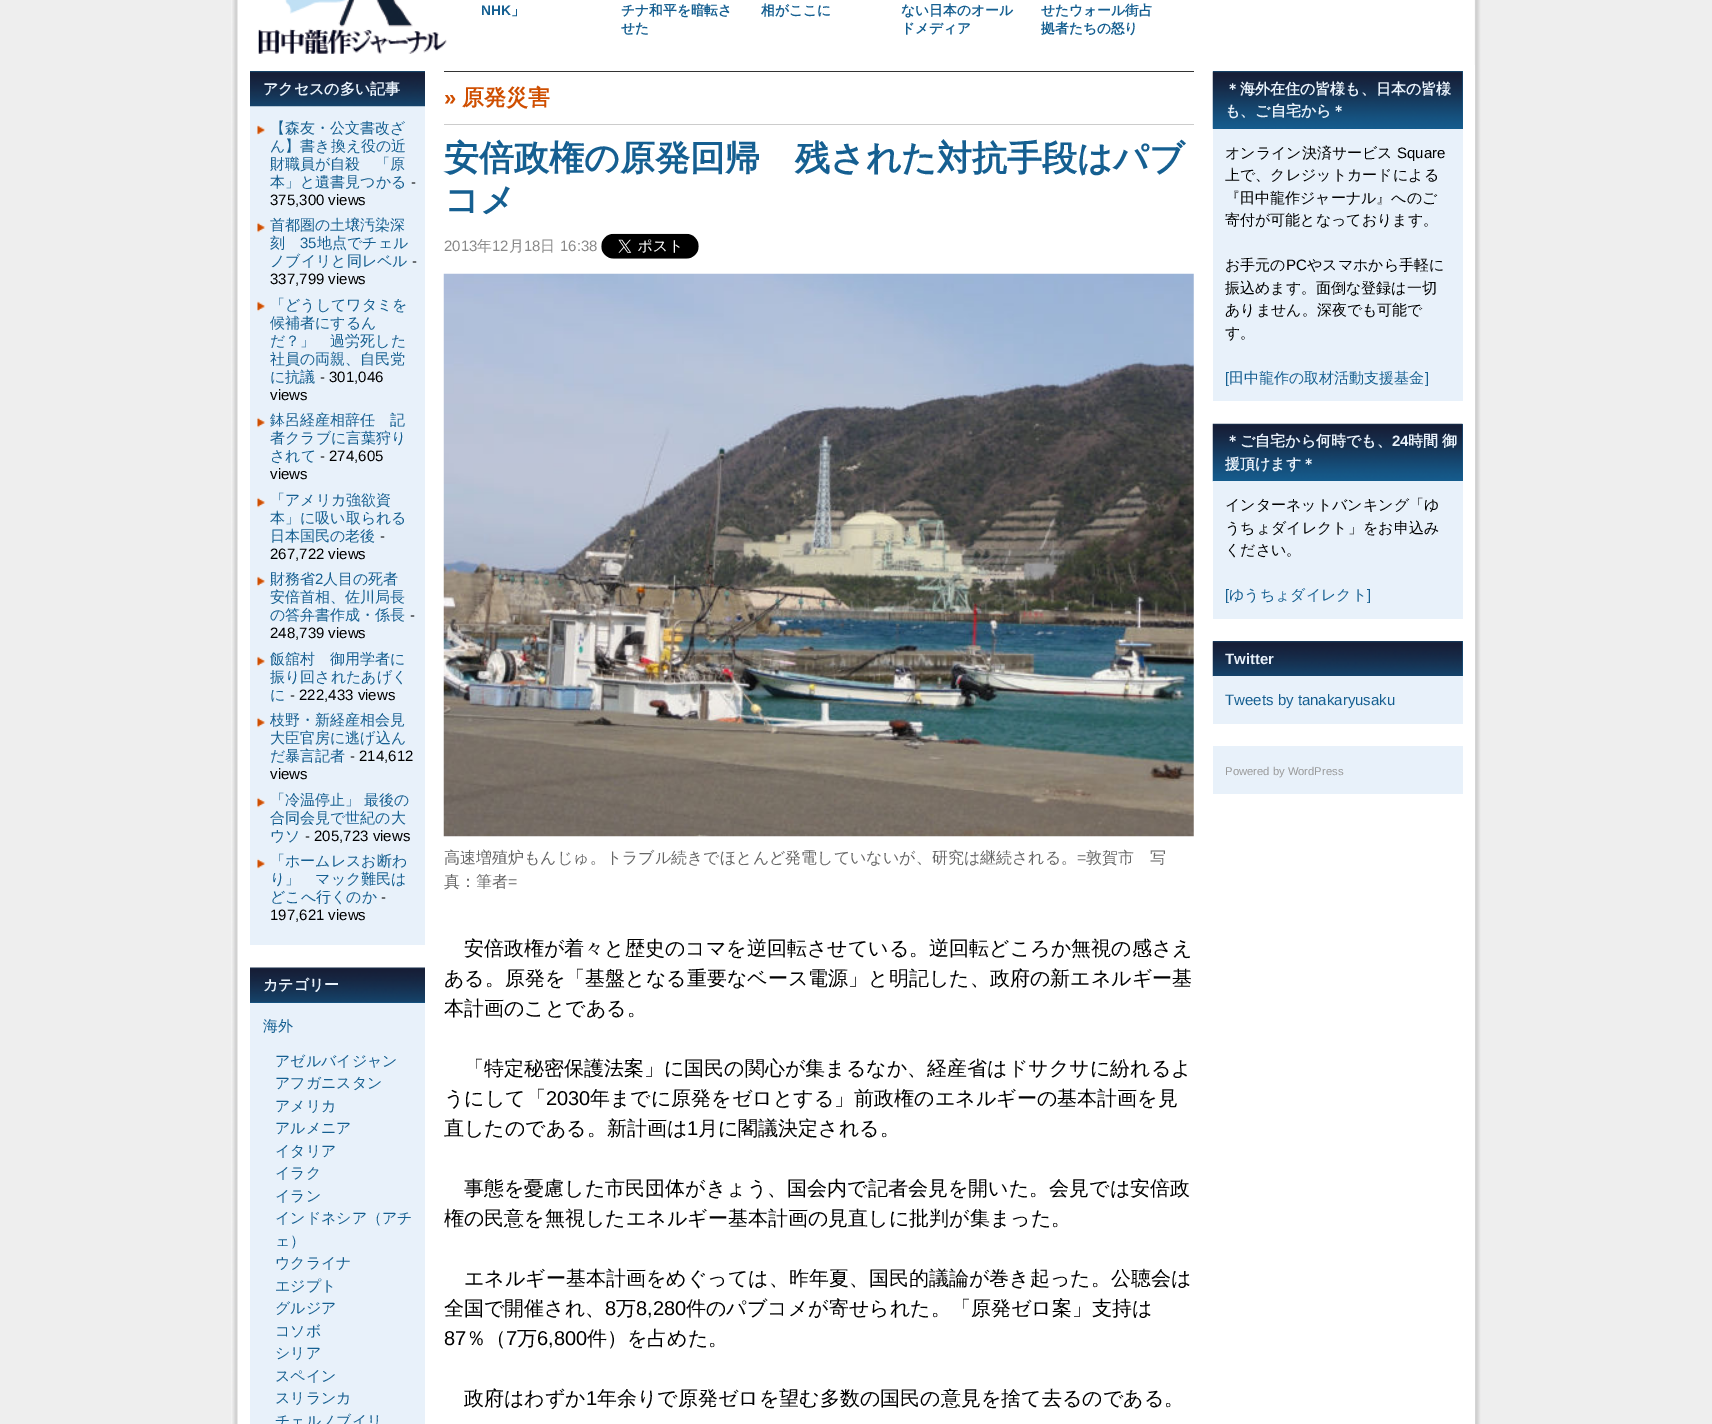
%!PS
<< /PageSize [1712 1424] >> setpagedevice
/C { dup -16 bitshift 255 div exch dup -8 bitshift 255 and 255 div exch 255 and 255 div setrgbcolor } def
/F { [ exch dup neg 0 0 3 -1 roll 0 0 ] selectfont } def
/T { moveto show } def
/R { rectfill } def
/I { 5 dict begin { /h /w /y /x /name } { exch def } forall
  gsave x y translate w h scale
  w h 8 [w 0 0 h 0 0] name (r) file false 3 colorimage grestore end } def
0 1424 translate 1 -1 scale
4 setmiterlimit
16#EEEEEE C
0 0 1712 1424 R
(1.rgb) 231 0 1250 1424 I
(2.rgb) 258 0 189 54 I
/LiberationSans-Bold 13.75 F
16#155F91 C
(NHK) 481 15 T
/WenQuanYiZenHei-Bold 13.75 F
(」) 511 15 T
(チナ和平を暗転さ) 621 15 T
(せた) 621 33 T
(相がここに) 761 15 T
(ない日本のオール) 901 15 T
(ドメディア) 901 33 T
(せたウォール街占) 1041 15 T
(拠者たちの怒り) 1041 33 T
16#FFFFFF C
1474 65 1 1359 R
16#E8F1FA C
250 106 175 839 R
16#155F91 C
250 71 175 1 R
(3.rgb) 250 71 175 36 I
/WenQuanYiZenHei-Bold 15 F
16#E8F1FA C
(アクセスの多い記事) 263 94 T
(4.rgb) 257 125 8 10 I
/WenQuanYiZenHei-Medium 15 F
16#155F91 C
(【森友・公文書改ざ) 270 133 T
(ん】書き換え役の近) 270 151 T
(財職員が自殺　「原) 270 169 T
(本」と遺書見つかる) 270 187 T
/LiberationSans-Regular 15 F
16#000000 C
(-) 411 187 T
(375,300 views) 270 205 T
(5.rgb) 257 222 8 11 I
/WenQuanYiZenHei-Medium 15 F
16#155F91 C
(首都圏の土壌汚染深) 270 230 T
(刻) 270 248 T
/LiberationSans-Regular 15 F
(35) 300 248 T
/WenQuanYiZenHei-Medium 15 F
(地点でチェル) 317 248 T
(ノブイリと同レベル) 270 266 T
/LiberationSans-Regular 15 F
16#000000 C
(-) 412 266 T
(337,799 views) 270 284 T
(6.rgb) 257 301 8 11 I
/WenQuanYiZenHei-Medium 15 F
16#155F91 C
(「どうしてワタミを) 270 310 T
(候補者にするん) 270 328 T
(だ？」　過労死した) 270 346 T
(社員の両親、自民党) 270 364 T
(に抗議) 270 382 T
/LiberationSans-Regular 15 F
16#000000 C
(- 301,046) 320 382 T
(views) 270 400 T
(5.rgb) 257 417 8 11 I
/WenQuanYiZenHei-Medium 15 F
16#155F91 C
(鉢呂経産相辞任　記) 270 425 T
(者クラブに言葉狩り) 270 443 T
(されて) 270 461 T
/LiberationSans-Regular 15 F
16#000000 C
(- 274,605) 320 461 T
(views) 270 479 T
(5.rgb) 257 497 8 11 I
/WenQuanYiZenHei-Medium 15 F
16#155F91 C
(「アメリカ強欲資) 270 505 T
(本」に吸い取られる) 270 523 T
(日本国民の老後) 270 541 T
/LiberationSans-Regular 15 F
16#000000 C
(-) 380 541 T
(267,722 views) 270 559 T
(6.rgb) 257 576 8 11 I
/WenQuanYiZenHei-Medium 15 F
16#155F91 C
(財務省) 270 584 T
/LiberationSans-Regular 15 F
(2) 315 584 T
/WenQuanYiZenHei-Medium 15 F
(人目の死者) 323 584 T
(安倍首相、佐川局長) 270 602 T
(の答弁書作成・係長) 270 620 T
/LiberationSans-Regular 15 F
16#000000 C
(-) 410 620 T
(248,739 views) 270 638 T
(6.rgb) 257 656 8 11 I
/WenQuanYiZenHei-Medium 15 F
16#155F91 C
(飯舘村　御用学者に) 270 664 T
(振り回されたあげく) 270 682 T
(に) 270 700 T
/LiberationSans-Regular 15 F
16#000000 C
(- 222,433 views) 290 700 T
(5.rgb) 257 717 8 11 I
/WenQuanYiZenHei-Medium 15 F
16#155F91 C
(枝野・新経産相会見) 270 725 T
(大臣官房に逃げ込ん) 270 743 T
(だ暴言記者) 270 761 T
/LiberationSans-Regular 15 F
16#000000 C
(- 214,612) 350 761 T
(views) 270 779 T
(5.rgb) 257 797 8 11 I
/WenQuanYiZenHei-Medium 15 F
16#155F91 C
(「冷温停止」 最後の) 270 805 T
(合同会見で世紀の大) 270 823 T
(ウソ) 270 841 T
/LiberationSans-Regular 15 F
16#000000 C
(- 205,723 views) 305 841 T
(7.rgb) 257 858 8 11 I
/WenQuanYiZenHei-Medium 15 F
16#155F91 C
(「ホームレスお断わ) 270 866 T
(り」　マック難民は) 270 884 T
(どこへ行くのか) 270 902 T
/LiberationSans-Regular 15 F
16#000000 C
(-) 381 902 T
(197,621 views) 270 920 T
16#E8F1FA C
250 1003 175 421 R
16#155F91 C
250 1002 175 1 R
(8.rgb) 250 967 175 36 I
/WenQuanYiZenHei-Bold 15 F
16#E8F1FA C
(カテゴリー) 263 990 T
/WenQuanYiZenHei-Medium 15 F
16#155F91 C
(海外) 263 1031 T
(アゼルバイジャン) 275 1066 T
(アフガニスタン) 275 1088 T
(アメリカ) 275 1111 T
(アルメニア) 275 1133 T
(イタリア) 275 1156 T
(イラク) 275 1178 T
(イラン) 275 1201 T
(インドネシア（アチ) 275 1223 T
(ェ）) 275 1246 T
(ウクライナ) 275 1268 T
(エジプト) 275 1291 T
(グルジア) 275 1313 T
(コソボ) 275 1336 T
(シリア) 275 1358 T
(スペイン) 275 1381 T
(スリランカ) 275 1403 T
(チェルノブイリ) 275 1426 T
16#333333 C
444 71 750 1 R
16#CCCCCC C
444 124 750 1 R
/LiberationSans-Bold 22 F
16#CF4E00 C
(») 444 105 T
/WenQuanYiZenHei-Bold 22 F
(原発災害) 462 105 T
/WenQuanYiZenHei-Bold 35 F
16#155F91 C
(安倍政権の原発回帰　残された対抗手段はパブ) 444 170 T
(コメ) 444 212 T
/LiberationSans-Regular 15 F
16#888888 C
(2013) 444 251 T
/WenQuanYiZenHei-Medium 15 F
(年) 477 251 T
/LiberationSans-Regular 15 F
(12) 492 251 T
/WenQuanYiZenHei-Medium 15 F
(月) 509 251 T
/LiberationSans-Regular 15 F
(18) 524 251 T
/WenQuanYiZenHei-Medium 15 F
(日) 540 251 T
/LiberationSans-Regular 15 F
(16:38) 560 251 T
(9.rgb) 601 233 98 26 I
(10.rgb) 443 273 751 564 I
/WenQuanYiZenHei-Medium 16 F
16#666666 C
(高速増殖炉もんじゅ。トラブル続きでほとんど発電していないが、研究は継続される。) 444 863 T
/LiberationSans-Regular 16 F
(=) 1077 863 T
/WenQuanYiZenHei-Medium 16 F
(敦賀市　写) 1086 863 T
(真：筆者) 444 887 T
/LiberationSans-Regular 16 F
(=) 508 887 T
/WenQuanYiZenHei-Medium 20 F
16#000000 C
(安倍政権が着々と歴史のコマを逆回転させている。逆回転どころか無視の感さえ) 464 955 T
(ある。原発を「基盤となる重要なベース電源」と明記した、政府の新エネルギー基) 444 985 T
(本計画のことである。) 444 1015 T
(「特定秘密保護法案」に国民の関心が集まるなか、経産省はドサクサに紛れるよ) 464 1075 T
(うにして「) 444 1105 T
/LiberationSans-Regular 20 F
(2030) 546 1105 T
/WenQuanYiZenHei-Medium 20 F
(年までに原発をゼロとする」前政権のエネルギーの基本計画を見) 590 1105 T
(直したのである。新計画は) 444 1135 T
/LiberationSans-Regular 20 F
(1) 687 1135 T
/WenQuanYiZenHei-Medium 20 F
(月に閣議決定される。) 698 1135 T
(事態を憂慮した市民団体がきょう、国会内で記者会見を開いた。会見では安倍政) 464 1195 T
(権の民意を無視したエネルギー基本計画の見直しに批判が集まった。) 444 1225 T
(エネルギー基本計画をめぐっては、昨年夏、国民的議論が巻き起った。公聴会は) 464 1285 T
(全国で開催され、) 444 1315 T
/LiberationSans-Regular 20 F
(8) 605 1315 T
/WenQuanYiZenHei-Medium 20 F
(万) 616 1315 T
/LiberationSans-Regular 20 F
(8,280) 636 1315 T
/WenQuanYiZenHei-Medium 20 F
(件のパブコメが寄せられた。「原発ゼロ案」支持は) 686 1315 T
/LiberationSans-Regular 20 F
(87) 444 1345 T
/WenQuanYiZenHei-Medium 20 F
(％（) 466 1345 T
/LiberationSans-Regular 20 F
(7) 506 1345 T
/WenQuanYiZenHei-Medium 20 F
(万) 517 1345 T
/LiberationSans-Regular 20 F
(6,800) 537 1345 T
/WenQuanYiZenHei-Medium 20 F
(件）を占めた。) 587 1345 T
(政府はわずか) 464 1405 T
/LiberationSans-Regular 20 F
(1) 586 1405 T
/WenQuanYiZenHei-Medium 20 F
(年余りで原発ゼロを望む多数の国民の意見を捨て去るのである。) 597 1405 T
16#155F91 C
1213 71 250 58 R
(11.rgb) 1212 71 251 58 I
/WenQuanYiZenHei-Bold 15 F
16#E8F1FA C
(＊海外在住の皆様も、日本の皆様) 1225 94 T
(も、ご自宅から＊) 1225 116 T
1213 129 250 272 R
/WenQuanYiZenHei-Medium 15 F
16#000000 C
(オンライン決済サービス) 1225 158 T
/LiberationSans-Regular 15 F
(Square) 1397 158 T
/WenQuanYiZenHei-Medium 15 F
(上で、クレジットカードによる) 1225 180 T
(『田中龍作ジャーナル』へのご) 1225 203 T
(寄付が可能となっております。) 1225 225 T
(お手元の) 1225 270 T
/LiberationSans-Regular 15 F
(PC) 1286 270 T
/WenQuanYiZenHei-Medium 15 F
(やスマホから手軽に) 1307 270 T
(振込めます。面倒な登録は一切) 1225 293 T
(ありません。深夜でも可能で) 1225 315 T
(す。) 1225 338 T
/LiberationSans-Regular 15 F
16#155F91 C
([) 1225 383 T
/WenQuanYiZenHei-Medium 15 F
(田中龍作の取材活動支援基金) 1229 383 T
/LiberationSans-Regular 15 F
(]) 1425 383 T
1462 424 1 57 R
(12.rgb) 1212 423 251 59 I
/WenQuanYiZenHei-Bold 15 F
16#E8F1FA C
(＊ご自宅から何時でも、) 1225 446 T
/LiberationSans-Bold 15 F
(24) 1392 446 T
/WenQuanYiZenHei-Bold 15 F
(時間 御) 1408 446 T
(援頂けます＊) 1225 469 T
1213 481 250 138 R
/WenQuanYiZenHei-Medium 15 F
16#000000 C
(インターネットバンキング「ゆ) 1225 510 T
(うちょダイレクト」をお申込み) 1225 533 T
(ください。) 1225 555 T
/LiberationSans-Regular 15 F
16#155F91 C
([) 1225 600 T
/WenQuanYiZenHei-Medium 15 F
(ゆうちょダイレクト) 1229 600 T
/LiberationSans-Regular 15 F
(]) 1367 600 T
1213 641 250 35 R
(13.rgb) 1212 641 251 36 I
/LiberationSans-Bold 15 F
16#E8F1FA C
(Twitter) 1225 664 T
1213 676 250 48 R
/LiberationSans-Regular 15 F
16#155F91 C
(Tweets by tanakaryusaku) 1225 705 T
16#E8F1FA C
1213 746 250 48 R
/LiberationSans-Regular 11.25 F
16#999999 C
(Powered by WordPress) 1225 775 T
showpage
